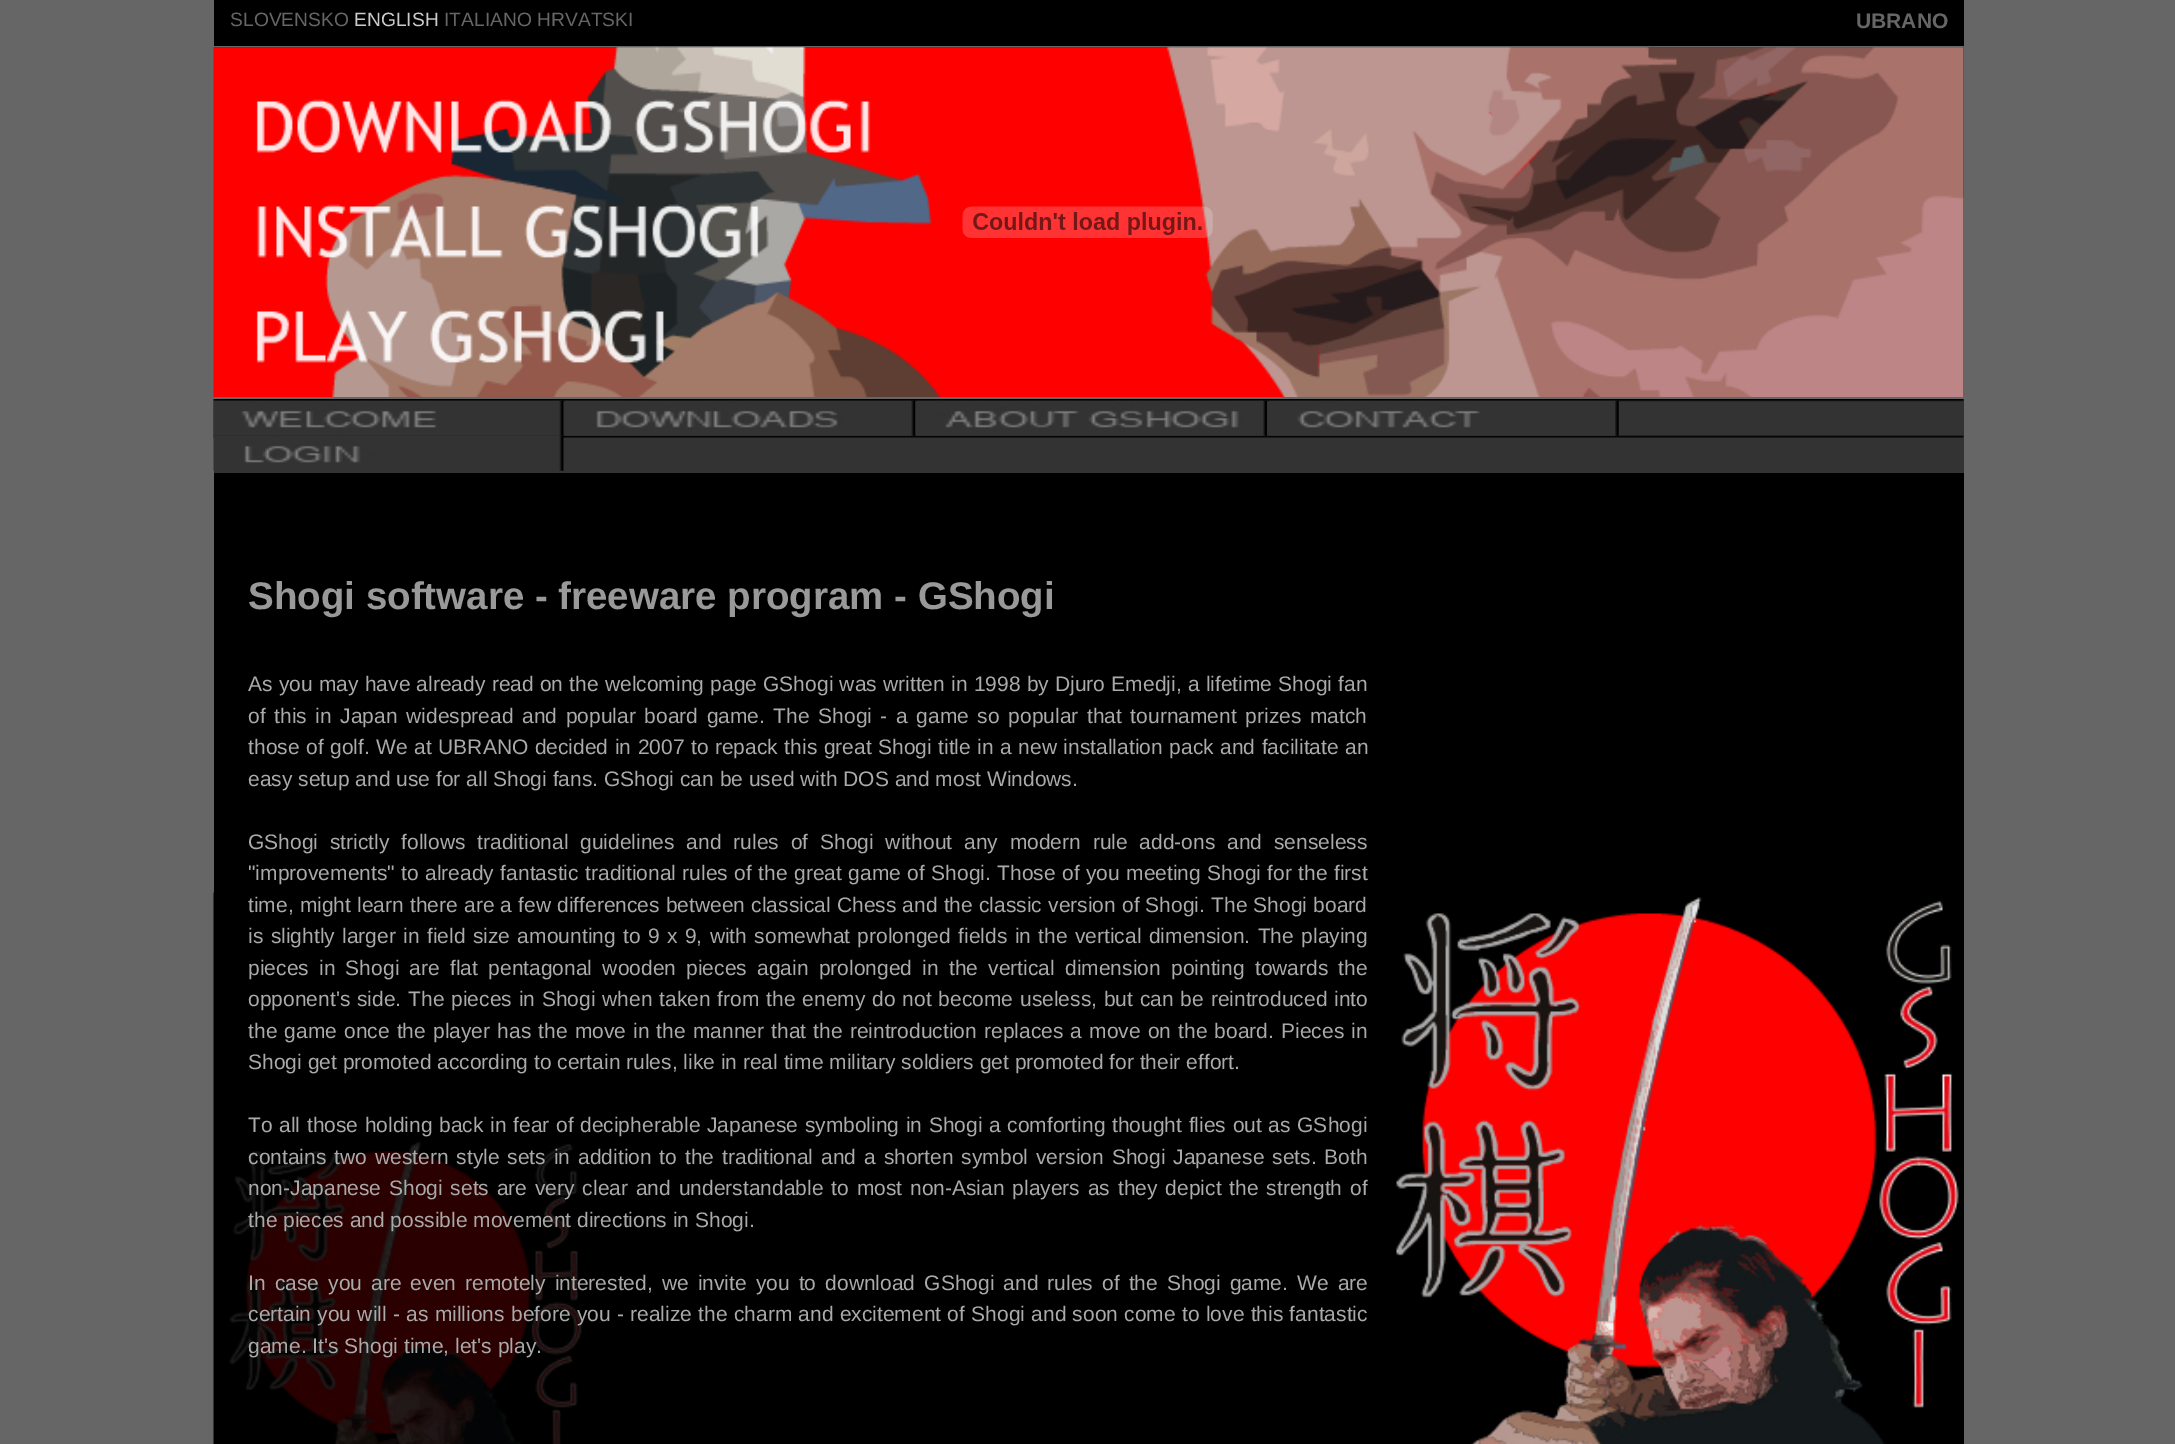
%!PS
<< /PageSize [2175 1444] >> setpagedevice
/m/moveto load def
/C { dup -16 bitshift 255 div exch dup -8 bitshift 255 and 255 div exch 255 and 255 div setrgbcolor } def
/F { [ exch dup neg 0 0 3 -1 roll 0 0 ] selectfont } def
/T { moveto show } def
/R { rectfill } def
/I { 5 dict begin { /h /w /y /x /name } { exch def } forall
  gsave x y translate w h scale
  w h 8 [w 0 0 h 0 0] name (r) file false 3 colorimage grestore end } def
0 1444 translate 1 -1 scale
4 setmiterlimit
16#666666 C
0 0 2175 1444 R
16#000000 C
214 0 1750 1444 R
(1.rgb) 213 892 1746 552 I
16#666666 C
214 46 1750 1 R
/LiberationSans-Regular 19.25 F
(SLOVENSKO) 230 26 T
16#CCCCCC C
(ENGLISH) 354 26 T
16#666666 C
(ITALIANO HRVATSKI) 444 26 T
/LiberationSans-Bold 21 F
(UBRANO) 1856 28 T
16#333333 C
214 47 1750 350 R
(2.rgb) 213 47 1751 351 I
(3.rgb) 962 206 251 32 I
16#666666 C
214 397 1750 2 R
16#333333 C
214 399 1750 74 R
(4.rgb) 213 399 1751 39 I
(5.rgb) 213 400 351 36 I
(6.rgb) 565 400 351 36 I
(7.rgb) 917 400 350 36 I
(8.rgb) 1269 400 350 36 I
(9.rgb) 213 436 351 35 I
/LiberationSans-Bold 38.5 F
16#999999 C
(Shogi software - freeware program - GShogi) 248 609 T
/LiberationSans-Regular 21 F
16#AAAAAA C
248 691 m .4 0 32 (As you may have already read on the welcoming page GShogi was written in 1998 by Djuro Emedji, a lifetime Shogi fan) widthshow
248 723 m 2.75 0 32 (of this in Japan widespread and popular board game. The Shogi - a game so popular that tournament prizes match) widthshow
248 754 m .7 0 32 (those of golf. We at UBRANO decided in 2007 to repack this great Shogi title in a new installation pack and facilitate an) widthshow
(easy setup and use for all Shogi fans. GShogi can be used with DOS and most Windows.) 248 786 T
248 849 m 6 0 32 (GShogi strictly follows traditional guidelines and rules of Shogi without any modern rule add-ons and senseless) widthshow
248 880 m .6 0 32 ("improvements" to already fantastic traditional rules of the great game of Shogi. Those of you meeting Shogi for the first) widthshow
248 912 m .3 0 32 (time, might learn there are a few differences between classical Chess and the classic version of Shogi. The Shogi board) widthshow
248 943 m 1.55 0 32 (is slightly larger in field size amounting to 9 x 9, with somewhat prolonged fields in the vertical dimension. The playing) widthshow
248 975 m 4.4 0 32 (pieces in Shogi are flat pentagonal wooden pieces again prolonged in the vertical dimension pointing towards the) widthshow
248 1006 m 1 0 32 (opponent's side.) widthshow
408 1006 m 1 0 32 (The pieces in Shogi when taken from the enemy do not become useless, but can be reintroduced into) widthshow
248 1038 m 1.3 0 32 (the game once the player has the move in the manner that the reintroduction replaces a move on the board. Pieces in) widthshow
(Shogi get promoted according to certain rules, like in real time military soldiers get promoted for their effort.) 248 1069 T
248 1132 m .8 0 32 (To all those holding back in fear of decipherable Japanese symboling in Shogi a comforting thought flies out as GShogi) widthshow
248 1164 m 2.1 0 32 (contains two western style sets in addition to the traditional and a shorten symbol version Shogi Japanese sets. Both) widthshow
248 1195 m 2 0 32 (non-Japanese Shogi sets are very clear and understandable to most non-Asian players as they depict the strength of) widthshow
(the pieces and possible movement directions in Shogi.) 248 1227 T
248 1290 m 3.25 0 32 (In case you are even remotely interested, we invite you to download GShogi and rules of the Shogi game. We are) widthshow
248 1321 m .45 0 32 (certain you will - as millions before you - realize the charm and excitement of Shogi and soon come to love this fantastic) widthshow
(game. It's Shogi time, let's play.) 248 1353 T
showpage
